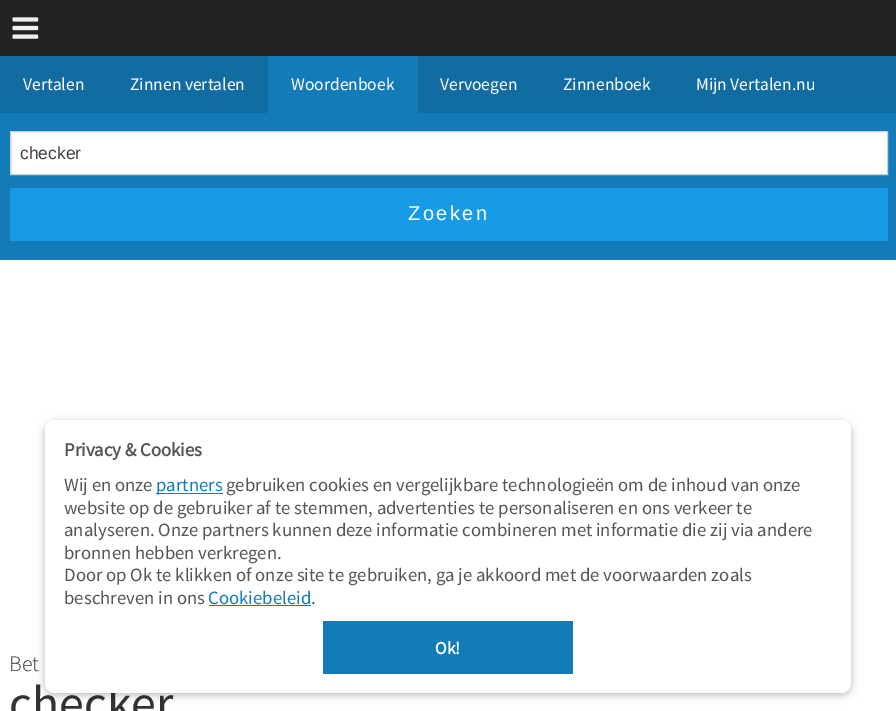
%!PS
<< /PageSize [896 711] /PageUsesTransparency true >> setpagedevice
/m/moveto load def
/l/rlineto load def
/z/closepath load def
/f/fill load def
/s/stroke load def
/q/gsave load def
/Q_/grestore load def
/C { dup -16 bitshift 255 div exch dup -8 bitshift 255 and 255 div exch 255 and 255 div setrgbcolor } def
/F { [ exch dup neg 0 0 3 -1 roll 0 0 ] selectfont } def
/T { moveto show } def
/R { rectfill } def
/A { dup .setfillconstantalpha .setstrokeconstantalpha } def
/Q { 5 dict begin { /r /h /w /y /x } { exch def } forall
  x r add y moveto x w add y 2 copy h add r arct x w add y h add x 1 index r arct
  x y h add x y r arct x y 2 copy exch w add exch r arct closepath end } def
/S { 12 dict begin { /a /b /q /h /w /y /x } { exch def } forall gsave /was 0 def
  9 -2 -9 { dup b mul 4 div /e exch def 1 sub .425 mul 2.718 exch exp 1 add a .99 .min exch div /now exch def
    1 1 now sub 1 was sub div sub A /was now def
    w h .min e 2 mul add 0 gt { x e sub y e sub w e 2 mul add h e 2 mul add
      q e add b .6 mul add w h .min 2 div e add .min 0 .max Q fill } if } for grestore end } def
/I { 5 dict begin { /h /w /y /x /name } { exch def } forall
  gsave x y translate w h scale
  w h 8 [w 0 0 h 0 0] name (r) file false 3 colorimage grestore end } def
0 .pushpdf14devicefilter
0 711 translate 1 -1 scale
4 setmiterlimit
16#FFFFFF C
0 0 896 711 R
16#222222 C
0 0 896 56 R
(1.rgb) 12 17 27 22 I
16#116CA1 C
0 56 896 57 R
/SourceSansPro-Regular 17.5 F
16#FFFFFF C
(Vertalen) 23 90 T
(Zinnen vertalen) 130 90 T
16#137CB8 C
268 56 150 57 R
16#FFFFFF C
(Woordenboek) 291 90 T
(Vervoegen) 440 90 T
(Zinnenboek) 563 90 T
(Mijn Vertalen.nu) 696 90 T
16#137CB8 C
0 113 896 147 R
16#FFFFFF C
10.5 131.5 m 877 0 l 0 43 l -877 0 l z q f Q_
16#CCCCCC C
s
/LiberationSans-Regular 17.5 F
16#404040 C
(checker) 20 159 T
16#189BE6 C
10 188 878 53 R
/LiberationSans-Regular 20 F
16#FFFFFF C
408 220 m 2.5 0 (Zoeken) ashow
/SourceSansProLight-Light 22 F
16#333333 C
(Bet) 9 671 T
/SourceSansPro-Regular 50 F
(checker) 9 720 T
16#000000 C
45 423 806 272 10 6 .12 S
45 423 806 272 10 3 .16 S
16#FFFFFF C
45 420 806 273 10 Q f
/SourceSansPro-Bold 18.75 F
16#555555 C
(Privacy & Cookies) 64 456 T
/SourceSansPro-Regular 18.75 F
(Wij en onze) 64 491 T
16#137CB8 C
156 493 67 1 R
(partners) 156 491 T
16#555555 C
(gebruiken cookies en vergelijkbare technologieën om de inhoud van onze) 226 491 T
(website op de gebruiker af te stemmen, advertenties te personaliseren en ons verkeer te) 64 514 T
(analyseren. Onze partners kunnen deze informatie combineren met informatie die zij via andere) 64 536 T
(bronnen hebben verkregen.) 64 559 T
(Door op Ok te klikken of onze site te gebruiken, ga je akkoord met de voorwaarden zoals) 64 581 T
(beschreven in ons) 64 604 T
16#137CB8 C
(Cookiebeleid) 208 604 T
209 605 102 1 R
16#555555 C
(.) 311 604 T
16#137CB8 C
323 621 250 53 R
/SourceSansPro-Bold 17.5 F
16#FFFFFF C
(Ok!) 435 654 T
.poppdf14devicefilter showpage
